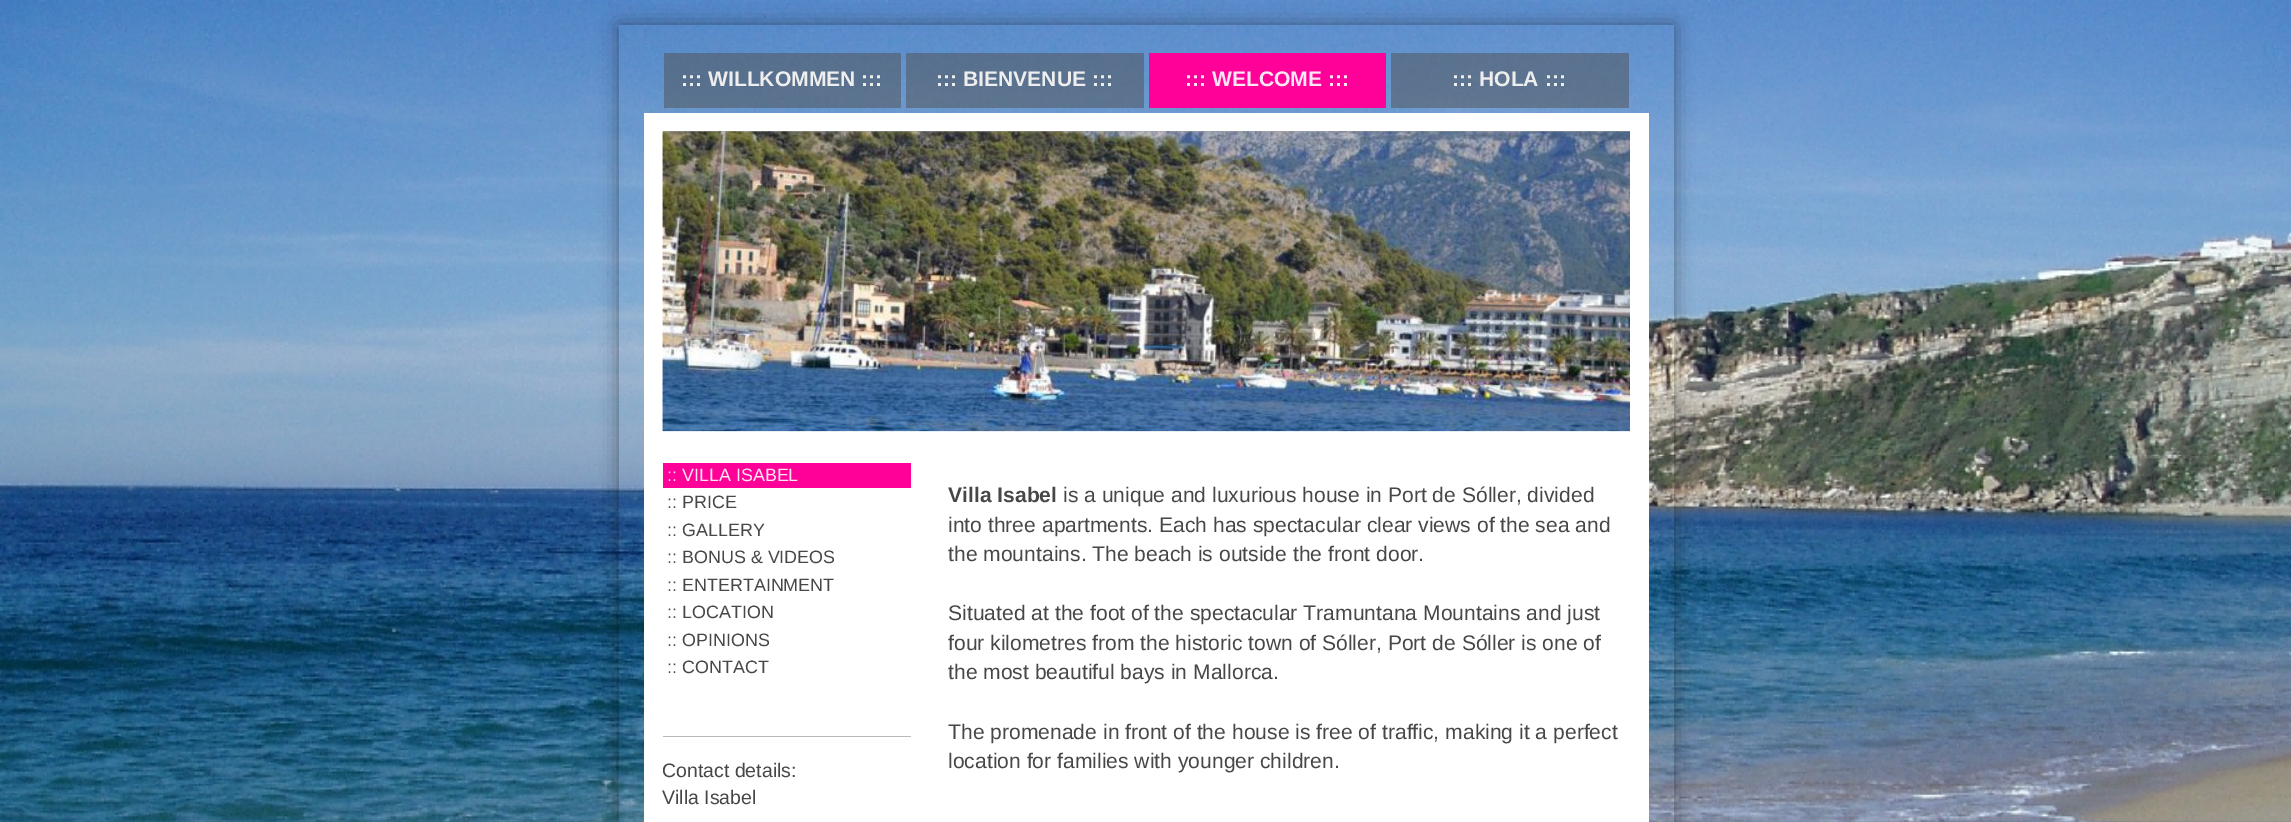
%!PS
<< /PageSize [2291 822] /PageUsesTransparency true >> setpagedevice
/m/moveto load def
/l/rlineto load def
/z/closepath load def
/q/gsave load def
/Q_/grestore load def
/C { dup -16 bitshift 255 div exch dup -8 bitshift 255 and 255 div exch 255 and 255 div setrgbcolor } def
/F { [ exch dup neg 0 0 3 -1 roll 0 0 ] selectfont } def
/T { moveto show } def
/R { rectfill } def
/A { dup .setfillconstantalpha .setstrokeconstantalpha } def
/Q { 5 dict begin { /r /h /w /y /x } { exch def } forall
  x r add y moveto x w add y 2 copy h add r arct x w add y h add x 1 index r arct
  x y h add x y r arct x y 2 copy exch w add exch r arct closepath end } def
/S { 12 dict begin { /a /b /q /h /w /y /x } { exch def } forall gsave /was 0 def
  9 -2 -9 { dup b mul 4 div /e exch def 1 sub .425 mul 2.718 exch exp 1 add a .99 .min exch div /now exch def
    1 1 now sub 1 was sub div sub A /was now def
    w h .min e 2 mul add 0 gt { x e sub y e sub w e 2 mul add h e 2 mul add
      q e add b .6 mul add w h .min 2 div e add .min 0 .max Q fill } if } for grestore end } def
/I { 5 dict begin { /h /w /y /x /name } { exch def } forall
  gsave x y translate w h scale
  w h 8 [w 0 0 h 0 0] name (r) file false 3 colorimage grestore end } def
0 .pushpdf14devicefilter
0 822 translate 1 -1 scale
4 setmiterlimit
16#FFFFFF C
0 0 2291 822 R
(1.rgb) 0 0 2291 822 I
q
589 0 m 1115 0 l 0 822 l -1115 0 l z 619 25 m 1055 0 l 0 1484 l -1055 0 l z eoclip newpath
16#000000 C
619 25 1055 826 0 9.5 .4 S
Q_
0.5 A
16#505050 C
664 53 237 55 R
/LiberationSans-Bold 21.1 F
1 A
16#EEEEEE C
(::: WILLKOMMEN :::) 681 86 T
0.5 A
16#505050 C
906 53 238 55 R
1 A
16#EEEEEE C
(::: BIENVENUE :::) 936 86 T
16#FF0098 C
1149 53 237 55 R
16#FFE6F5 C
(::: WELCOME :::) 1185 86 T
0.5 A
16#505050 C
1391 53 238 55 R
1 A
16#EEEEEE C
(::: HOLA :::) 1452 86 T
16#FFFFFF C
644 113 1005 709 R
(2.rgb) 662 131 968 301 I
16#A0A0A0 C
663 131 967 1 R
(3.rgb) 662 131 968 301 I
16#FF0098 C
663 463 248 25 R
/LiberationSans-Regular 17.9 F
16#FFE6F5 C
(::) 667 481 T
(VILLA ISABEL) 682 481 T
16#474747 C
(::) 667 508 T
(PRICE) 682 508 T
(::) 667 536 T
(GALLERY) 682 536 T
(::) 667 563 T
(BONUS & VIDEOS) 682 563 T
(::) 667 591 T
(ENTERTAINMENT) 682 591 T
(::) 667 618 T
(LOCATION) 682 618 T
(::) 667 646 T
(OPINIONS) 682 646 T
(::) 667 673 T
(CONTACT) 682 673 T
16#BABABA C
663 736 248 1 R
/LiberationSans-Regular 19.5 F
16#474747 C
(Contact details:) 662 777 T
(Villa Isabel) 662 804 T
/LiberationSans-Bold 21.1 F
(Villa Isabel) 948 502 T
/LiberationSans-Regular 21.1 F
(is a unique and luxurious house in Port de Sóller, divided) 1063 502 T
(into three apartments. Each has spectacular clear views of the sea and) 948 532 T
(the mountains. The beach is outside the front door.) 948 561 T
(Situated at the foot of the spectacular Tramuntana Mountains and just) 948 620 T
(four kilometres from the historic town of Sóller, Port de Sóller is one of) 948 650 T
(the most beautiful bays in Mallorca.) 948 679 T
(The promenade in front of the house is free of traffic, making it a perfect) 948 739 T
(location for families with younger children.) 948 768 T
.poppdf14devicefilter showpage
